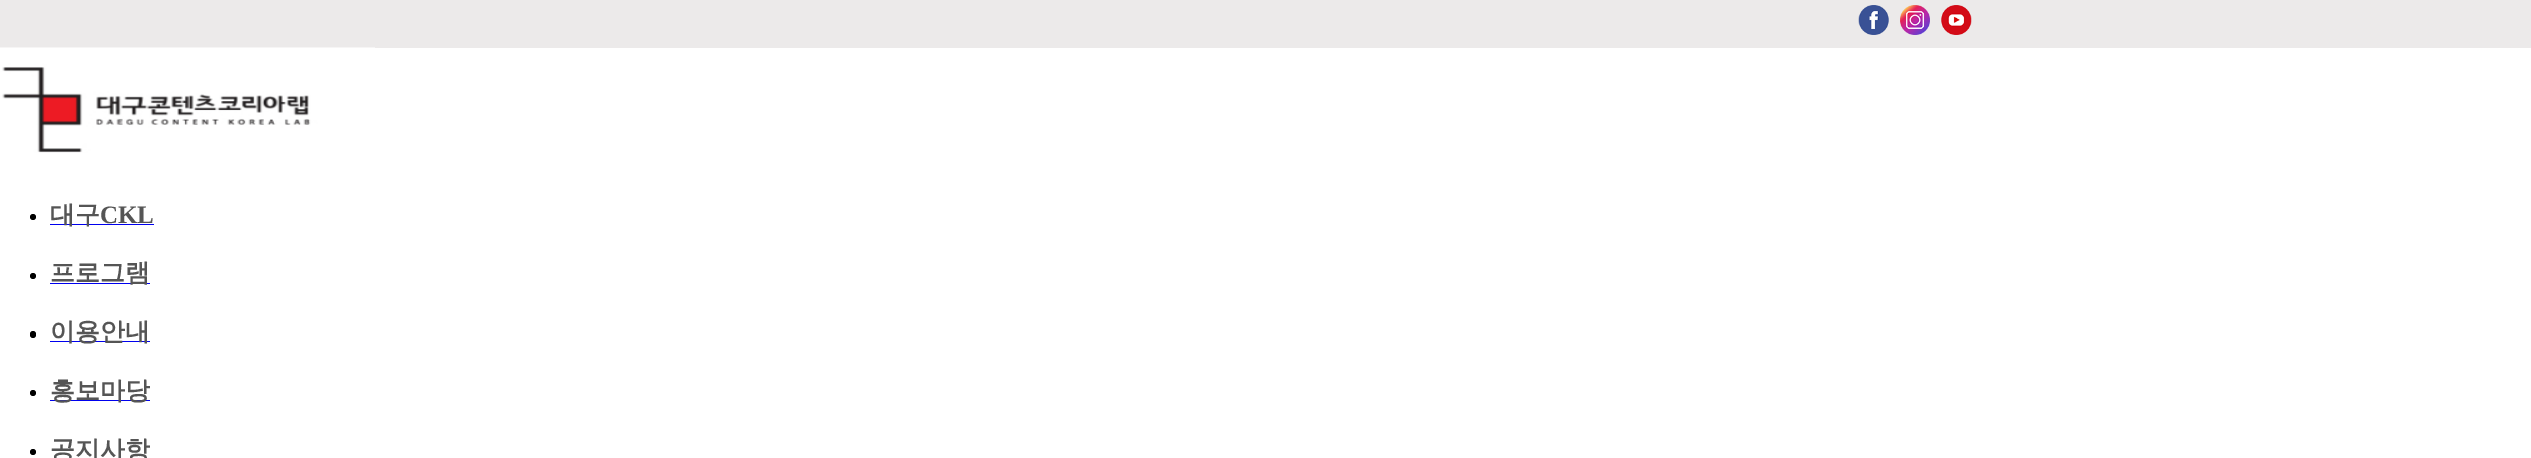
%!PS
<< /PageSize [2531 458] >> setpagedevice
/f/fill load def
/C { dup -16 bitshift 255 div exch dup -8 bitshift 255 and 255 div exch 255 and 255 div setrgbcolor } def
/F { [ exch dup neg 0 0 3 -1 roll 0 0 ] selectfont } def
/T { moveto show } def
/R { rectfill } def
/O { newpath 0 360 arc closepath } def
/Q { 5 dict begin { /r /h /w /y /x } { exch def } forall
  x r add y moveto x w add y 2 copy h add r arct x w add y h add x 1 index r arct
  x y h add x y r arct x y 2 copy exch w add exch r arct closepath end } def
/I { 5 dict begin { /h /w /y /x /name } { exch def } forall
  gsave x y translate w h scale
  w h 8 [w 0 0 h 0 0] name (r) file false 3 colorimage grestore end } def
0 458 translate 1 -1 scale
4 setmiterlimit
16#FFFFFF C
0 0 2531 458 R
16#ECEAEA C
0 0 2531 48 R
(1.rgb) 1858 5 31 30 I
(2.rgb) 1900 5 30 30 I
(3.rgb) 1941 5 31 30 I
(4.rgb) 0 47 375 106 I
16#000000 C
33 217 3 O f
16#0000EE C
50 224 104 1 R
/WenQuanYiZenHei-Bold 25 F
16#555555 C
(대구) 50 223 T
/LiberationSerif-Bold 25 F
(CKL) 100 223 T
16#000000 C
33 276 3 O f
16#0000EE C
50 283 100 1 R
/WenQuanYiZenHei-Bold 25 F
16#555555 C
(프로그램) 50 281 T
16#000000 C
30 331 6 7 3 Q f
16#0000EE C
50 341 100 1 R
16#555555 C
(이용안내) 50 340 T
16#000000 C
33 393 3 O f
16#0000EE C
50 400 100 1 R
16#555555 C
(홍보마당) 50 399 T
16#000000 C
33 452 3 O f
16#555555 C
(공지사항) 50 458 T
showpage
